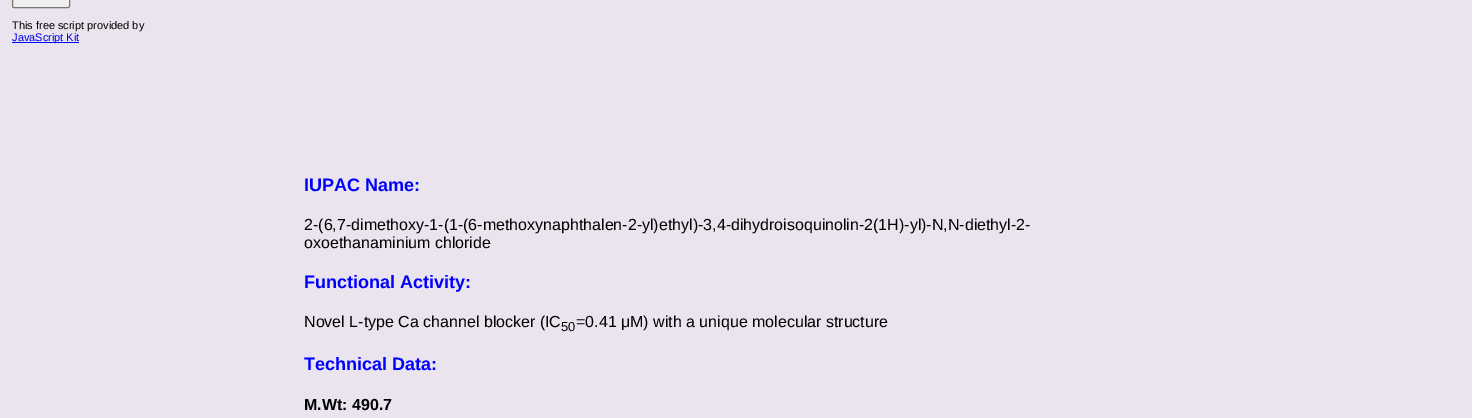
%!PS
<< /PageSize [1472 418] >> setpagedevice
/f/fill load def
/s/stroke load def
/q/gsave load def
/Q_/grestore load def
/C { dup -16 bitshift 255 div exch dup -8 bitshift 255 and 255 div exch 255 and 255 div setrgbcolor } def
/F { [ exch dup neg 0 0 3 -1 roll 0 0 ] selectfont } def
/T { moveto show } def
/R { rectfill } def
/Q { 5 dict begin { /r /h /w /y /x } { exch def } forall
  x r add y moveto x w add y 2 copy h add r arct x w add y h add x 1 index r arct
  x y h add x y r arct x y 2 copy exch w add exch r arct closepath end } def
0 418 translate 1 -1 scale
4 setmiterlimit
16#EAE4EF C
0 0 1472 418 R
16#EFEFEF C
12.5 -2.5 57 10 1.5 Q q f Q_
16#767676 C
s
/LiberationSans-Regular 11 F
16#000000 C
(This free script provided by) 12 29 T
16#0000EE C
12 42 67 1 R
(JavaScript Kit) 12 41 T
/LiberationSans-Bold 18 F
16#0000FF C
(IUPAC Name:) 304 191 T
/LiberationSans-Regular 16 F
16#000000 C
(2-\(6,7-dimethoxy-1-\(1-\(6-methoxynaphthalen-2-yl\)ethyl\)-3,4-dihydroisoquinolin-2\(1H\)-yl\)-N,N-diethyl-2-) 304 230 T
(oxoethanaminium chloride) 304 248 T
/LiberationSans-Bold 18 F
16#0000FF C
(Functional Activity:) 304 288 T
/LiberationSans-Regular 16 F
16#000000 C
(Novel L-type Ca channel blocker \(IC) 304 327 T
/LiberationSans-Regular 13 F
(50) 561 331 T
/LiberationSans-Regular 16 F
(=0.41 μM\) with a unique molecular structure) 576 327 T
/LiberationSans-Bold 18 F
16#0000FF C
(Technical Data:) 304 370 T
/LiberationSans-Bold 16 F
16#000000 C
(M.Wt: 490.7) 304 410 T
showpage
